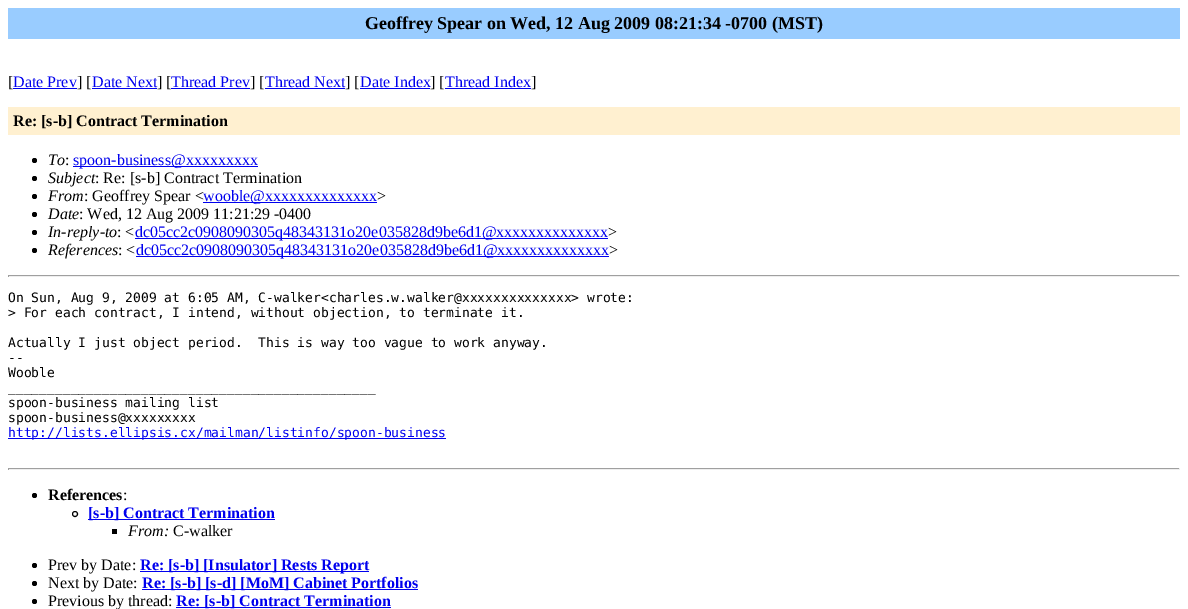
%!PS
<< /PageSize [1188 609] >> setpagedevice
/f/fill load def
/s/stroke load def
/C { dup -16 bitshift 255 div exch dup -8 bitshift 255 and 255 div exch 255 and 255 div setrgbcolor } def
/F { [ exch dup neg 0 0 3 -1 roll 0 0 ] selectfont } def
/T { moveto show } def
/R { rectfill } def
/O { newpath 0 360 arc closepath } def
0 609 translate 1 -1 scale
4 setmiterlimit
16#FFFFFF C
0 0 1188 609 R
16#99CCFF C
8 8 1172 31 R
/LiberationSerif-Bold 18 F
16#000000 C
(Geoffrey Spear on Wed, 12 Aug 2009 08:21:34 -0700 \(MST\)) 365 29 T
/LiberationSerif-Regular 16 F
([) 8 87 T
16#0000EE C
(Date Prev) 13 87 T
13 88 64 1 R
16#000000 C
(] [) 77 87 T
16#0000EE C
(Date Next) 92 87 T
92 88 65 1 R
16#000000 C
(] [) 157 87 T
16#0000EE C
(Thread Prev) 171 87 T
171 88 79 1 R
16#000000 C
(] [) 250 87 T
16#0000EE C
(Thread Next) 265 87 T
265 88 80 1 R
16#000000 C
(] [) 345 87 T
16#0000EE C
(Date Index) 360 87 T
360 88 70 1 R
16#000000 C
(] [) 430 87 T
16#0000EE C
(Thread Index) 445 87 T
445 88 86 1 R
16#000000 C
(]) 531 87 T
16#FFF0D0 C
8 107 1172 28 R
/LiberationSerif-Bold 16 F
16#000000 C
(Re: [s-b] Contract Termination) 13 126 T
34.5 160.5 2.5 O f
/LiberationSerif-Italic 16 F
(To) 48 165 T
/LiberationSerif-Regular 16 F
(:) 65 165 T
16#0000EE C
73 166 185 1 R
(spoon-business@xxxxxxxxx) 73 165 T
16#000000 C
34.5 178.5 2.5 O f
/LiberationSerif-Italic 16 F
(Subject) 48 183 T
/LiberationSerif-Regular 16 F
(: Re: [s-b] Contract Termination) 95 183 T
34.5 196.5 2.5 O f
/LiberationSerif-Italic 16 F
(From) 48 201 T
/LiberationSerif-Regular 16 F
(: Geoffrey Spear <) 84 201 T
16#0000EE C
203 202 174 1 R
(wooble@xxxxxxxxxxxxxx) 203 201 T
16#000000 C
(>) 377 201 T
34.5 214.5 2.5 O f
/LiberationSerif-Italic 16 F
(Date) 48 219 T
/LiberationSerif-Regular 16 F
(: Wed, 12 Aug 2009 11:21:29 -0400) 79 219 T
34.5 232.5 2.5 O f
/LiberationSerif-Italic 16 F
(In-reply-to) 48 237 T
/LiberationSerif-Regular 16 F
(: <) 117 237 T
16#0000EE C
135 238 473 1 R
(dc05cc2c0908090305q48343131o20e035828d9be6d1@xxxxxxxxxxxxxx) 135 237 T
16#000000 C
(>) 608 237 T
34.5 250.5 2.5 O f
/LiberationSerif-Italic 16 F
(References) 48 255 T
/LiberationSerif-Regular 16 F
(: <) 118 255 T
16#0000EE C
136 256 473 1 R
(dc05cc2c0908090305q48343131o20e035828d9be6d1@xxxxxxxxxxxxxx) 136 255 T
16#000000 C
(>) 609 255 T
16#9F9F9F C
8 275 1172 1 R
16#EEEEEE C
1179 275 1 2 R
8 276 1172 1 R
16#9F9F9F C
8 275 1 2 R
/DejaVuSansMono-Regular 13 F
16#000000 C
(On Sun, Aug 9, 2009 at 6:05 AM, C-walker<charles.w.walker@xxxxxxxxxxxxxx> wrote:) 8 302 T
(> For each contract, I intend, without objection, to terminate it.) 8 317 T
(Actually I just object period.  This is way too vague to work anyway.) 8 347 T
(--) 8 362 T
(Wooble) 8 377 T
(_______________________________________________) 8 392 T
(spoon-business mailing list) 8 407 T
(spoon-business@xxxxxxxxx) 8 422 T
16#0000EE C
8 438 438 1 R
(http://lists.ellipsis.cx/mailman/listinfo/spoon-business) 8 437 T
16#9F9F9F C
8 468 1172 1 R
16#EEEEEE C
1179 468 1 2 R
8 469 1172 1 R
16#9F9F9F C
8 468 1 2 R
16#000000 C
34.5 495.5 2.5 O f
/LiberationSerif-Bold 16 F
(References) 48 500 T
/LiberationSerif-Regular 16 F
(:) 123 500 T
75 514 2.5 O s
16#0000EE C
88 519 187 1 R
/LiberationSerif-Bold 16 F
([s-b] Contract Termination) 88 518 T
16#000000 C
112 529 5 5 R
/LiberationSerif-Italic 16 F
(From:) 128 536 T
/LiberationSerif-Regular 16 F
(C-walker) 173 536 T
34.5 565.5 2.5 O f
(Prev by Date:) 48 570 T
16#0000EE C
140 571 229 1 R
/LiberationSerif-Bold 16 F
(Re: [s-b] [Insulator] Rests Report) 140 570 T
16#000000 C
34.5 583.5 2.5 O f
/LiberationSerif-Regular 16 F
(Next by Date:) 48 588 T
16#0000EE C
142 589 276 1 R
/LiberationSerif-Bold 16 F
(Re: [s-b] [s-d] [MoM] Cabinet Portfolios) 142 588 T
16#000000 C
34.5 601.5 2.5 O f
/LiberationSerif-Regular 16 F
(Previous by thread:) 48 606 T
16#0000EE C
176 607 215 1 R
/LiberationSerif-Bold 16 F
(Re: [s-b] Contract Termination) 176 606 T
showpage
